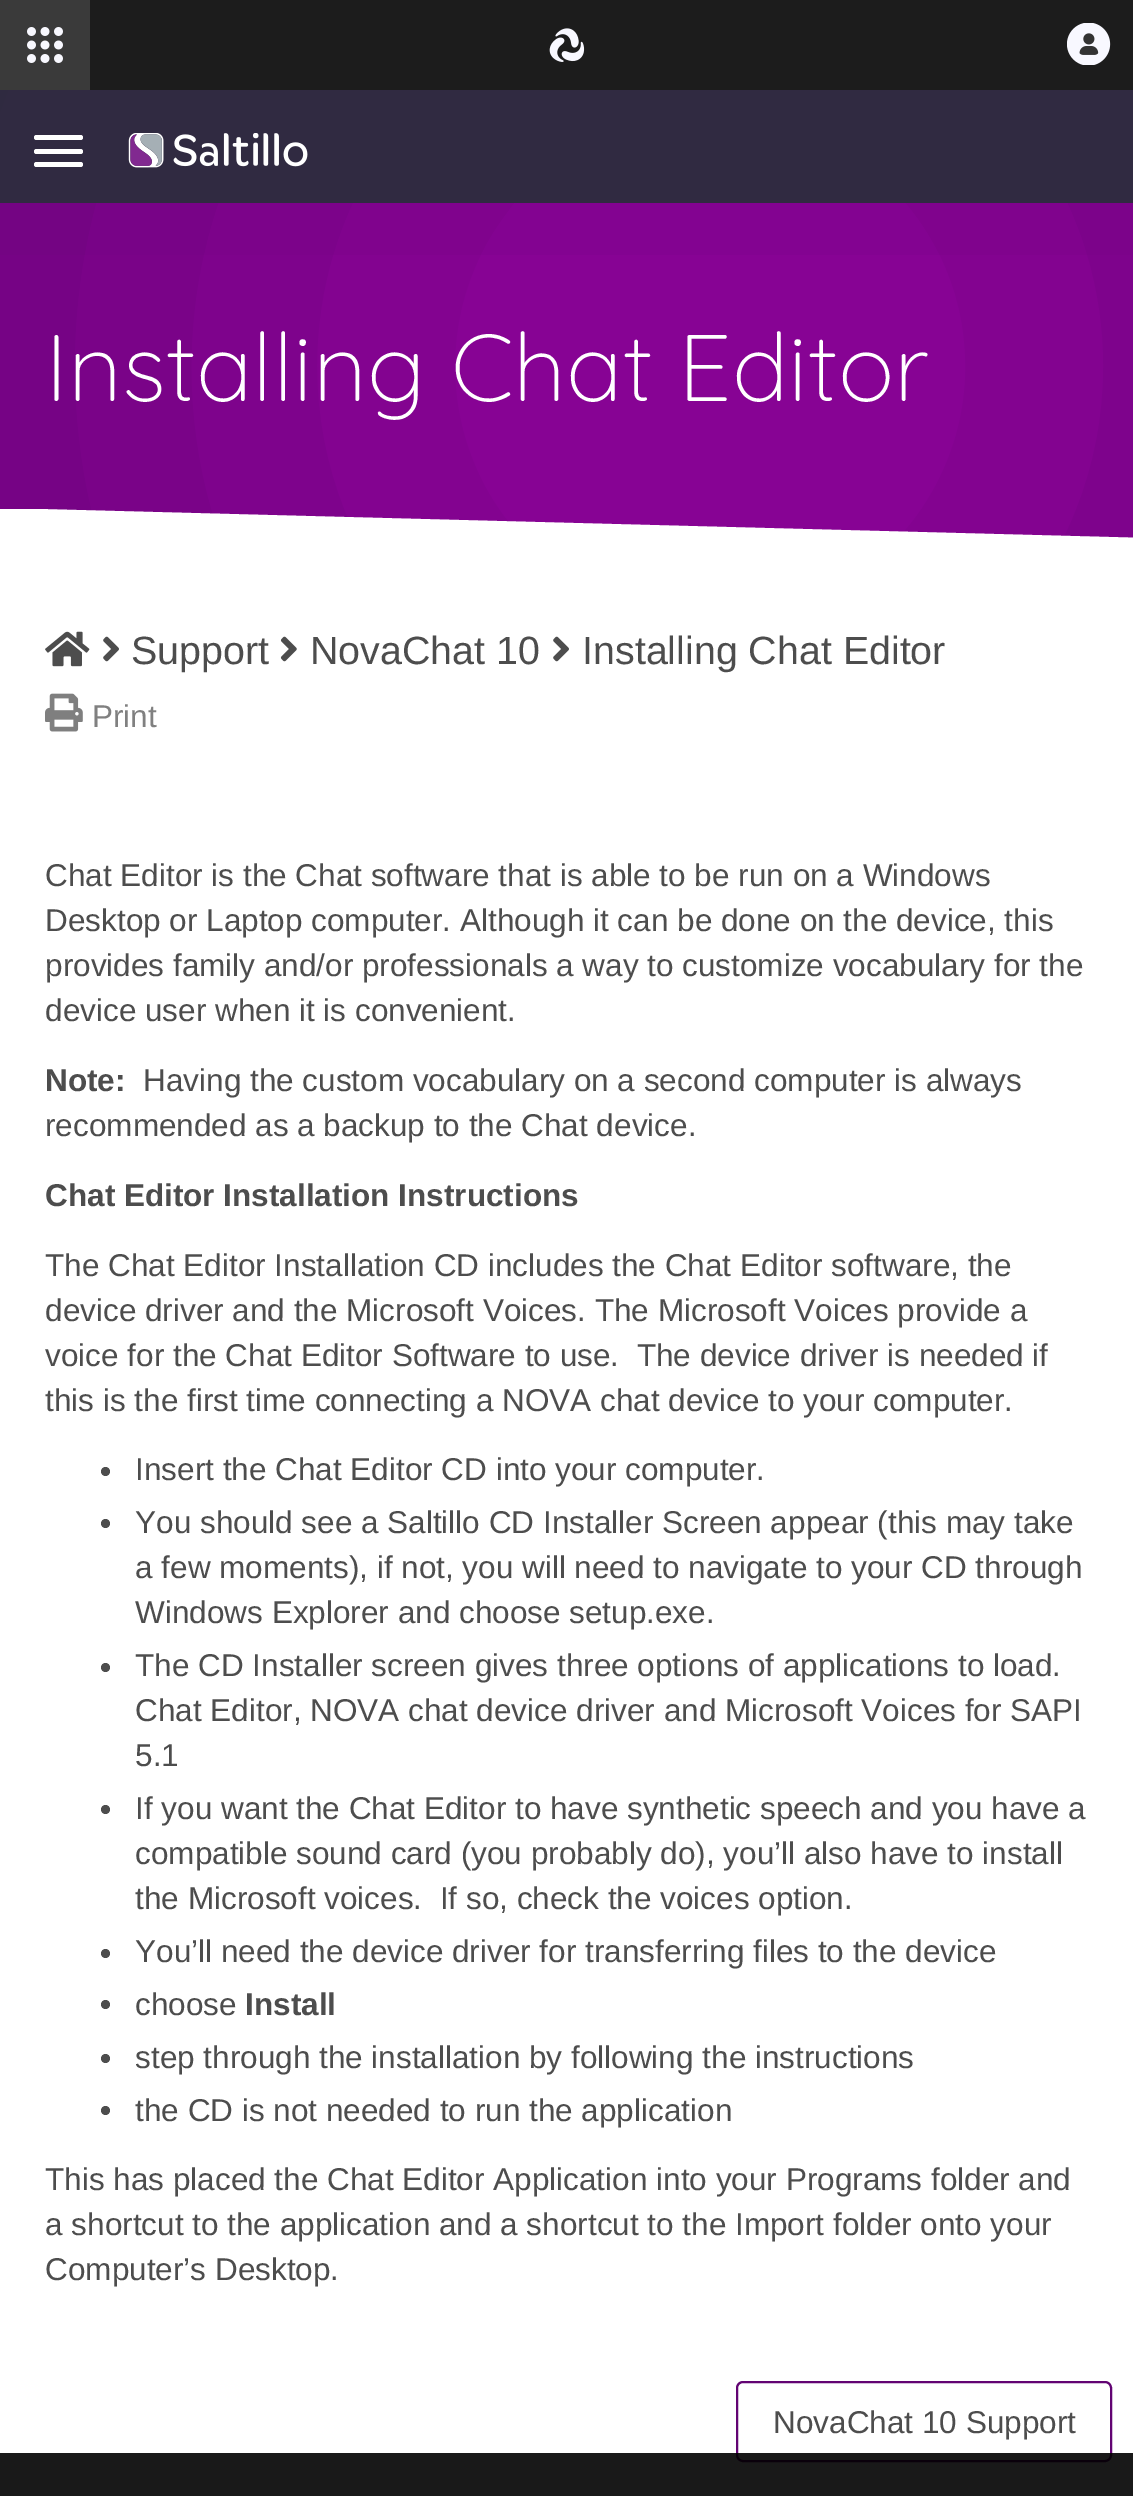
%!PS
<< /PageSize [1133 2496] /PageUsesTransparency true >> setpagedevice
/m/moveto load def
/l/rlineto load def
/z/closepath load def
/f/fill load def
/s/stroke load def
/q/gsave load def
/Q_/grestore load def
/w/setlinewidth load def
/C { dup -16 bitshift 255 div exch dup -8 bitshift 255 and 255 div exch 255 and 255 div setrgbcolor } def
/F { [ exch dup neg 0 0 3 -1 roll 0 0 ] selectfont } def
/T { moveto show } def
/R { rectfill } def
/A { dup .setfillconstantalpha .setstrokeconstantalpha } def
/O { newpath 0 360 arc closepath } def
/Q { 5 dict begin { /r /h /w /y /x } { exch def } forall
  x r add y moveto x w add y 2 copy h add r arct x w add y h add x 1 index r arct
  x y h add x y r arct x y 2 copy exch w add exch r arct closepath end } def
/I { 5 dict begin { /h /w /y /x /name } { exch def } forall
  gsave x y translate w h scale
  w h 8 [w 0 0 h 0 0] name (r) file false 3 colorimage grestore end } def
0 .pushpdf14devicefilter
0 2496 translate 1 -1 scale
4 setmiterlimit
16#FFFFFF C
0 0 1133 2496 R
16#1C1C1C C
90 0 1043 90 R
16#3A3A3A C
0 0 90 90 R
(1.rgb) 27 27 36 36 I
(2.rgb) 549 28 36 34 I
(3.rgb) 1067 23 44 42 I
16#620473 C
0 90 1133 448 R
(5.rgb) 0 90 1133 448 I
0.95 A
16#2C2C3D C
0 90 1133 113 R
1 A
16#FFFFFF C
34 135 49 5 2.5 Q f
34 149 49 5 2.5 Q f
34 162 49 5 2.5 Q f
(4.rgb) 128 133 180 35 I
/Quicksand-Light 94.5 F
(Installing Chat Editor) 45 401 T
q
0 509 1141 112 rectclip
0 508 m 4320 113 l -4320 0 l z f
Q_
(6.rgb) 45 631 45 36 I
(7.rgb) 103 636 16 26 I
/LiberationSans-Regular 39.4 F
16#4D4D4D C
(Support) 131 664 T
(8.rgb) 280 636 17 26 I
(NovaChat 10) 310 664 T
(7.rgb) 553 636 16 26 I
(Installing Chat Editor) 582 664 T
(9.rgb) 45 693 38 39 I
/LiberationSans-Regular 31.5 F
16#808080 C
(Print) 92 727 T
16#4D4D4D C
(Chat Editor is the Chat software that is able to be run on a Windows) 45 886 T
(Desktop or Laptop computer. Although it can be done on the device, this) 45 931 T
(provides family and/or professionals a way to customize vocabulary for the) 45 976 T
(device user when it is convenient.) 45 1021 T
/LiberationSans-Bold 31.5 F
(Note:) 45 1091 T
/LiberationSans-Regular 31.5 F
(Having the custom vocabulary on a second computer is always) 143 1091 T
(recommended as a backup to the Chat device.) 45 1136 T
/LiberationSans-Bold 31.5 F
(Chat Editor Installation Instructions) 45 1206 T
/LiberationSans-Regular 31.5 F
(The Chat Editor Installation CD includes the Chat Editor software, the) 45 1276 T
(device driver and the Microsoft Voices. The Microsoft Voices provide a) 45 1321 T
(voice for the Chat Editor Software to use.  The device driver is needed if) 45 1366 T
(this is the first time connecting a NOVA chat device to your computer.) 45 1411 T
105.5 1471.5 4.5 O f
(Insert the Chat Editor CD into your computer.) 135 1480 T
105.5 1523.5 4.5 O f
(You should see a Saltillo CD Installer Screen appear \(this may take) 135 1533 T
(a few moments\), if not, you will need to navigate to your CD through) 135 1578 T
(Windows Explorer and choose setup.exe.) 135 1623 T
105.5 1667.5 4.5 O f
(The CD Installer screen gives three options of applications to load.) 135 1676 T
(Chat Editor, NOVA chat device driver and Microsoft Voices for SAPI) 135 1721 T
(5.1) 135 1766 T
105.5 1809.5 4.5 O f
(If you want the Chat Editor to have synthetic speech and you have a) 135 1819 T
(compatible sound card \(you probably do\), you’ll also have to install) 135 1864 T
(the Microsoft voices.  If so, check the voices option.) 135 1909 T
105.5 1953.5 4.5 O f
(You’ll need the device driver for transferring files to the device) 135 1962 T
105.5 2004.5 4.5 O f
(choose) 135 2015 T
/LiberationSans-Bold 31.5 F
(Install) 245 2015 T
105.5 2058.5 4.5 O f
/LiberationSans-Regular 31.5 F
(step through the installation by following the instructions) 135 2068 T
105.5 2110.5 4.5 O f
(the CD is not needed to run the application) 135 2121 T
(This has placed the Chat Editor Application into your Programs folder and) 45 2190 T
(a shortcut to the application and a shortcut to the Import folder onto your) 45 2235 T
(Computer’s Desktop.) 45 2280 T
16#620473 C
2 w
737 2382 374 79 6 Q s
16#4D4D4D C
(NovaChat 10 Support) 773 2433 T
0.9 A
16#000000 C
0 2453 1133 43 R
.poppdf14devicefilter showpage
